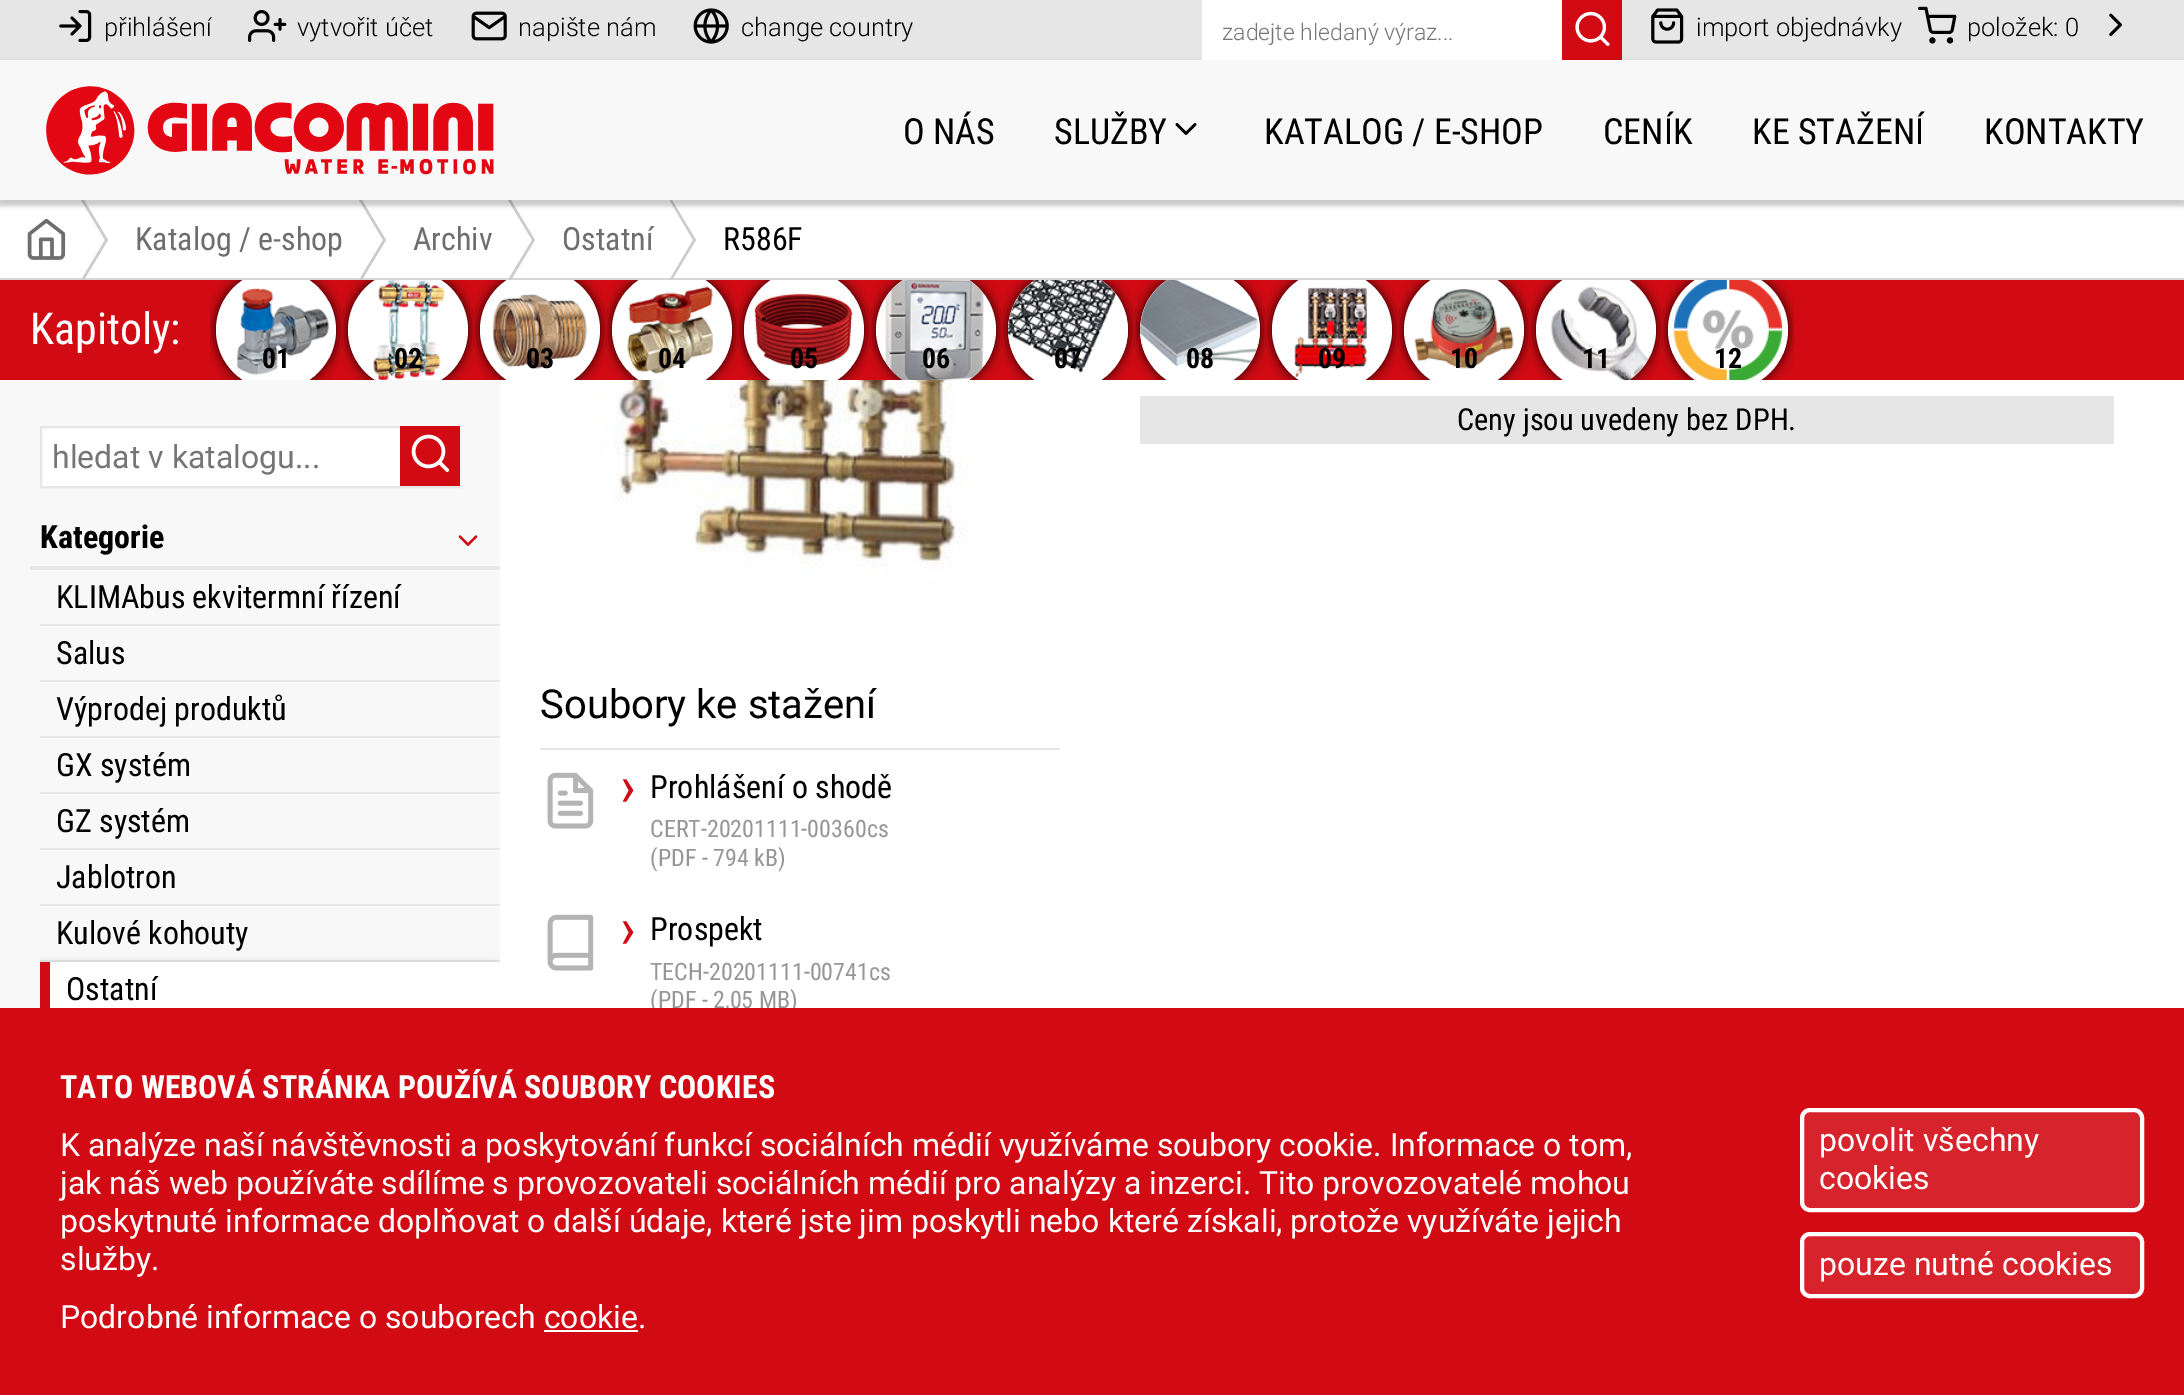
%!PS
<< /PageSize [2184 1395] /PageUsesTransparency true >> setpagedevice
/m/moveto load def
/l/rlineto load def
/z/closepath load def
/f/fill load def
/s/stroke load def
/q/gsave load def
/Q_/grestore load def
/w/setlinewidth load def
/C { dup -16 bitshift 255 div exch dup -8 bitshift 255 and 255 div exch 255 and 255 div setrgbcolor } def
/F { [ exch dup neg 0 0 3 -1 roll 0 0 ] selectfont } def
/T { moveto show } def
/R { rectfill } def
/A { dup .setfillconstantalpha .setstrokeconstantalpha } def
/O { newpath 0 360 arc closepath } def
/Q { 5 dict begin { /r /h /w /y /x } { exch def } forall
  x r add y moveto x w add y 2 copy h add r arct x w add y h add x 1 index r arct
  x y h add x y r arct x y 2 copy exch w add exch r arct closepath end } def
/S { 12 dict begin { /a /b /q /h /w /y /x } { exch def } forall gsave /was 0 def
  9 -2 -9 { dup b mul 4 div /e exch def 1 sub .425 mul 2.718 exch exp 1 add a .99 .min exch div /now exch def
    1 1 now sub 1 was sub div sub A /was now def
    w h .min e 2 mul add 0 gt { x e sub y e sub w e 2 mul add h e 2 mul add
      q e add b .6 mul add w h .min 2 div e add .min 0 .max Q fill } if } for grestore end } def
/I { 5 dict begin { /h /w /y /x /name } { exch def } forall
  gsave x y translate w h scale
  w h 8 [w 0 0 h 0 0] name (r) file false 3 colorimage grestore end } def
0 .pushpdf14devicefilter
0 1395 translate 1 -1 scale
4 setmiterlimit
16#FFFFFF C
0 0 2184 1395 R
16#E6E6E6 C
0 0 2184 60 R
(1.rgb) 59 10 33 32 I
/Roboto-Light 25.5 F
16#000000 C
(přihlášení) 104 36 T
(2.rgb) 248 10 39 32 I
(vytvořit účet) 297 36 T
(3.rgb) 471 11 36 30 I
(napište nám) 518 36 T
(4.rgb) 693 8 36 36 I
(change country) 741 36 T
16#D6D6D6 C
0 278 2184 2 R
16#CCCCCC C
81 200 m 24 40 l -24 40 l 3 0 l 24 -40 l -24 -40 l z f
359 200 m 24 40 l -24 40 l 3 0 l 24 -40 l -24 -40 l z f
508 200 m 24 40 l -24 40 l 3 0 l 24 -40 l -24 -40 l z f
670 200 m 2 0 l 24 40 l -24 40 l -2 0 l 0 -1 l 23 -39 l -23 -39 l z f
16#000000 C
-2 62 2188 144 0 2 .2 S
16#FFFFFF C
1202 0 360 60 R
/Roboto-Light 23 F
16#757575 C
(zadejte hledaný výraz...) 1222 40 T
16#D20A14 C
1562 0 60 60 R
(5.rgb) 1575 11 35 35 I
(6.rgb) 1651 8 33 36 I
/Roboto-Light 25.5 F
16#000000 C
(import objednávky) 1696 36 T
(7.rgb) 1918 6 39 38 I
(položek: 0) 1967 36 T
(8.rgb) 2109 13 13 23 I
16#F8F8F8 C
0 60 2184 140 R
(9.rgb) 46 86 448 89 I
/RobotoCondensed-Regular 36 F
16#000000 C
(O NÁS) 903 144 T
(SLUŽBY) 1054 144 T
(10.rgb) 1175 123 22 12 I
(KATALOG / E-SHOP) 1264 144 T
(CENÍK) 1603 144 T
(KE STAŽENÍ) 1752 144 T
(KONTAKTY) 1984 144 T
(11.rgb) 27 218 39 42 I
/RobotoCondensed-Regular 32 F
16#6E6E6E C
(Katalog / e-shop) 135 250 T
(Archiv) 413 250 T
(Ostatní) 562 250 T
16#000000 C
(R586F) 723 250 T
16#D20A14 C
0 280 2184 100 R
/RobotoCondensed-Regular 44 F
16#FFFFFF C
(Kapitoly:) 30 344 T
16#F8F8F8 C
0 380 500 628 R
q
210 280 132 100 rectclip
16#000000 C
216 270 120 120 60 6 .9 S
Q_
q
210 280 132 100 rectclip
16#FFFFFF C
276 330 60 O f
Q_
(12.rgb) 236 288 93 87 I
/RobotoCondensed-Bold 28 F
16#000000 C
(01) 262 368 T
q
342 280 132 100 rectclip
348 270 120 120 60 6 .9 S
Q_
q
342 280 132 100 rectclip
16#FFFFFF C
408 330 60 O f
Q_
(13.rgb) 373 280 72 100 I
(02) 394 368 T
(26.rgb) 600 380 384 204 I
q
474 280 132 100 rectclip
480 270 120 120 60 6 .9 S
Q_
q
474 280 132 100 rectclip
16#FFFFFF C
540 330 60 O f
Q_
(14.rgb) 492 294 95 75 I
(03) 526 368 T
q
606 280 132 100 rectclip
612 270 120 120 60 6 .9 S
Q_
q
606 280 132 100 rectclip
16#FFFFFF C
672 330 60 O f
Q_
(15.rgb) 627 286 86 88 I
(04) 658 368 T
q
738 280 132 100 rectclip
744 270 120 120 60 6 .9 S
Q_
q
738 280 132 100 rectclip
16#FFFFFF C
804 330 60 O f
Q_
(16.rgb) 754 293 99 74 I
(05) 790 368 T
q
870 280 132 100 rectclip
876 270 120 120 60 6 .9 S
Q_
q
870 280 132 100 rectclip
16#FFFFFF C
936 330 60 O f
Q_
(17.rgb) 885 280 99 100 I
(06) 922 368 T
16#E6E6E6 C
1140 396 974 48 R
q
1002 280 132 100 rectclip
16#000000 C
1008 270 120 120 60 6 .9 S
Q_
q
1002 280 132 100 rectclip
16#FFFFFF C
1068 330 60 O f
Q_
(18.rgb) 1008 280 120 93 I
16#000000 C
(07) 1054 368 T
q
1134 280 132 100 rectclip
1140 270 120 120 60 6 .9 S
Q_
q
1134 280 132 100 rectclip
16#FFFFFF C
1200 330 60 O f
Q_
(19.rgb) 1140 280 120 87 I
(08) 1186 368 T
q
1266 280 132 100 rectclip
1272 270 120 120 60 6 .9 S
Q_
q
1266 280 132 100 rectclip
16#FFFFFF C
1332 330 60 O f
Q_
(20.rgb) 1294 287 73 90 I
(09) 1318 368 T
q
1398 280 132 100 rectclip
1404 270 120 120 60 6 .9 S
Q_
q
1398 280 132 100 rectclip
16#FFFFFF C
1464 330 60 O f
Q_
(21.rgb) 1414 289 100 80 I
(10) 1450 368 T
q
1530 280 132 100 rectclip
1536 270 120 120 60 6 .9 S
Q_
q
1530 280 132 100 rectclip
16#FFFFFF C
1596 330 60 O f
Q_
(22.rgb) 1550 286 100 94 I
(11) 1582 368 T
q
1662 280 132 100 rectclip
1668 270 120 120 60 6 .9 S
Q_
q
1662 280 132 100 rectclip
16#FFFFFF C
1728 330 60 O f
Q_
(23.rgb) 1673 280 110 100 I
(12) 1714 368 T
16#FFFFFF C
42 428 358 58 R
16#E6E6E6 C
2 w
41 427 418 60 rectstroke
/Roboto-Regular 32 F
16#757575 C
(hledat v katalogu...) 52 468 T
16#D20A14 C
400 426 60 60 R
(24.rgb) 411 434 39 38 I
16#E6E6E6 C
30 566 470 4 R
/RobotoCondensed-Bold 32 F
16#000000 C
(Kategorie) 40 548 T
(25.rgb) 458 535 20 11 I
16#E6E6E6 C
40 624 460 2 R
/RobotoCondensed-Regular 32 F
16#000000 C
(KLIMAbus ekvitermní řízení) 56 608 T
16#E6E6E6 C
40 680 460 2 R
16#000000 C
(Salus) 56 664 T
16#E6E6E6 C
40 736 460 2 R
16#000000 C
(Výprodej produktů) 56 720 T
16#E6E6E6 C
40 792 460 2 R
16#000000 C
(GX systém) 56 776 T
16#E6E6E6 C
40 848 460 2 R
16#000000 C
(GZ systém) 56 832 T
16#E6E6E6 C
40 904 460 2 R
16#000000 C
(Jablotron) 56 888 T
16#E6E6E6 C
40 960 460 2 R
16#000000 C
(Kulové kohouty) 56 944 T
q
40 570 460 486 rectclip
34 966 460 56 0 5 .3 S
Q_
16#FFFFFF C
50 962 450 46 R
16#D20A14 C
40 1018 m 0 -56 l 10 0 l 0 54 l z f
16#000000 C
(Ostatní) 66 1000 T
/RobotoCondensed-Regular 30.4 F
(Ceny jsou uvedeny bez DPH.) 1457 430 T
16#E6E6E6 C
540 748 520 2 R
/Roboto-Regular 40 F
16#000000 C
(Soubory ke stažení) 540 718 T
(27.rgb) 547 772 47 57 I
/RobotoCondensed-Regular 58 F
16#D20A14 C
(›) 620 806 T
/RobotoCondensed-Regular 32 F
16#000000 C
(Prohlášení o shodě) 650 798 T
/RobotoCondensed-Regular 24 F
16#969696 C
(CERT-20201111-00360cs) 650 837 T
(\(PDF - 794 kB\)) 650 866 T
(28.rgb) 547 914 47 57 I
/RobotoCondensed-Regular 58 F
16#D20A14 C
(›) 620 948 T
/RobotoCondensed-Regular 32 F
16#000000 C
(Prospekt) 650 940 T
/RobotoCondensed-Regular 24 F
16#969696 C
(TECH-20201111-00741cs) 650 980 T
(\(PDF - 2,05 MB\)) 650 1008 T
16#D20A14 C
0 1008 2184 387 R
/RobotoCondensed-Bold 32 F
16#FFFFFF C
(TATO WEBOVÁ STRÁNKA POUŽÍVÁ SOUBORY COOKIES) 60 1098 T
/Roboto-Regular 32 F
(K analýze naší návštěvnosti a poskytování funkcí sociálních médií využíváme soubory cookie. Informace o tom,) 60 1156 T
(jak náš web používáte sdílíme s provozovateli sociálních médií pro analýzy a inzerci. Tito provozovatelé mohou) 60 1194 T
(poskytnuté informace doplňovat o další údaje, které jste jim poskytli nebo které získali, protože využíváte jejich) 60 1232 T
(služby.) 60 1270 T
(Podrobné informace o souborech cookie.) 60 1328 T
544 1330 94 2 R
16#D7232C C
1802 1110 340 100 8 Q q f Q_
16#FFFFFF C
4 w
s
(povolit všechny) 1819 1151 T
(cookies) 1819 1189 T
16#D7232C C
1802 1234 340 62 8 Q q f Q_
16#FFFFFF C
s
(pouze nutné cookies) 1819 1275 T
.poppdf14devicefilter showpage
